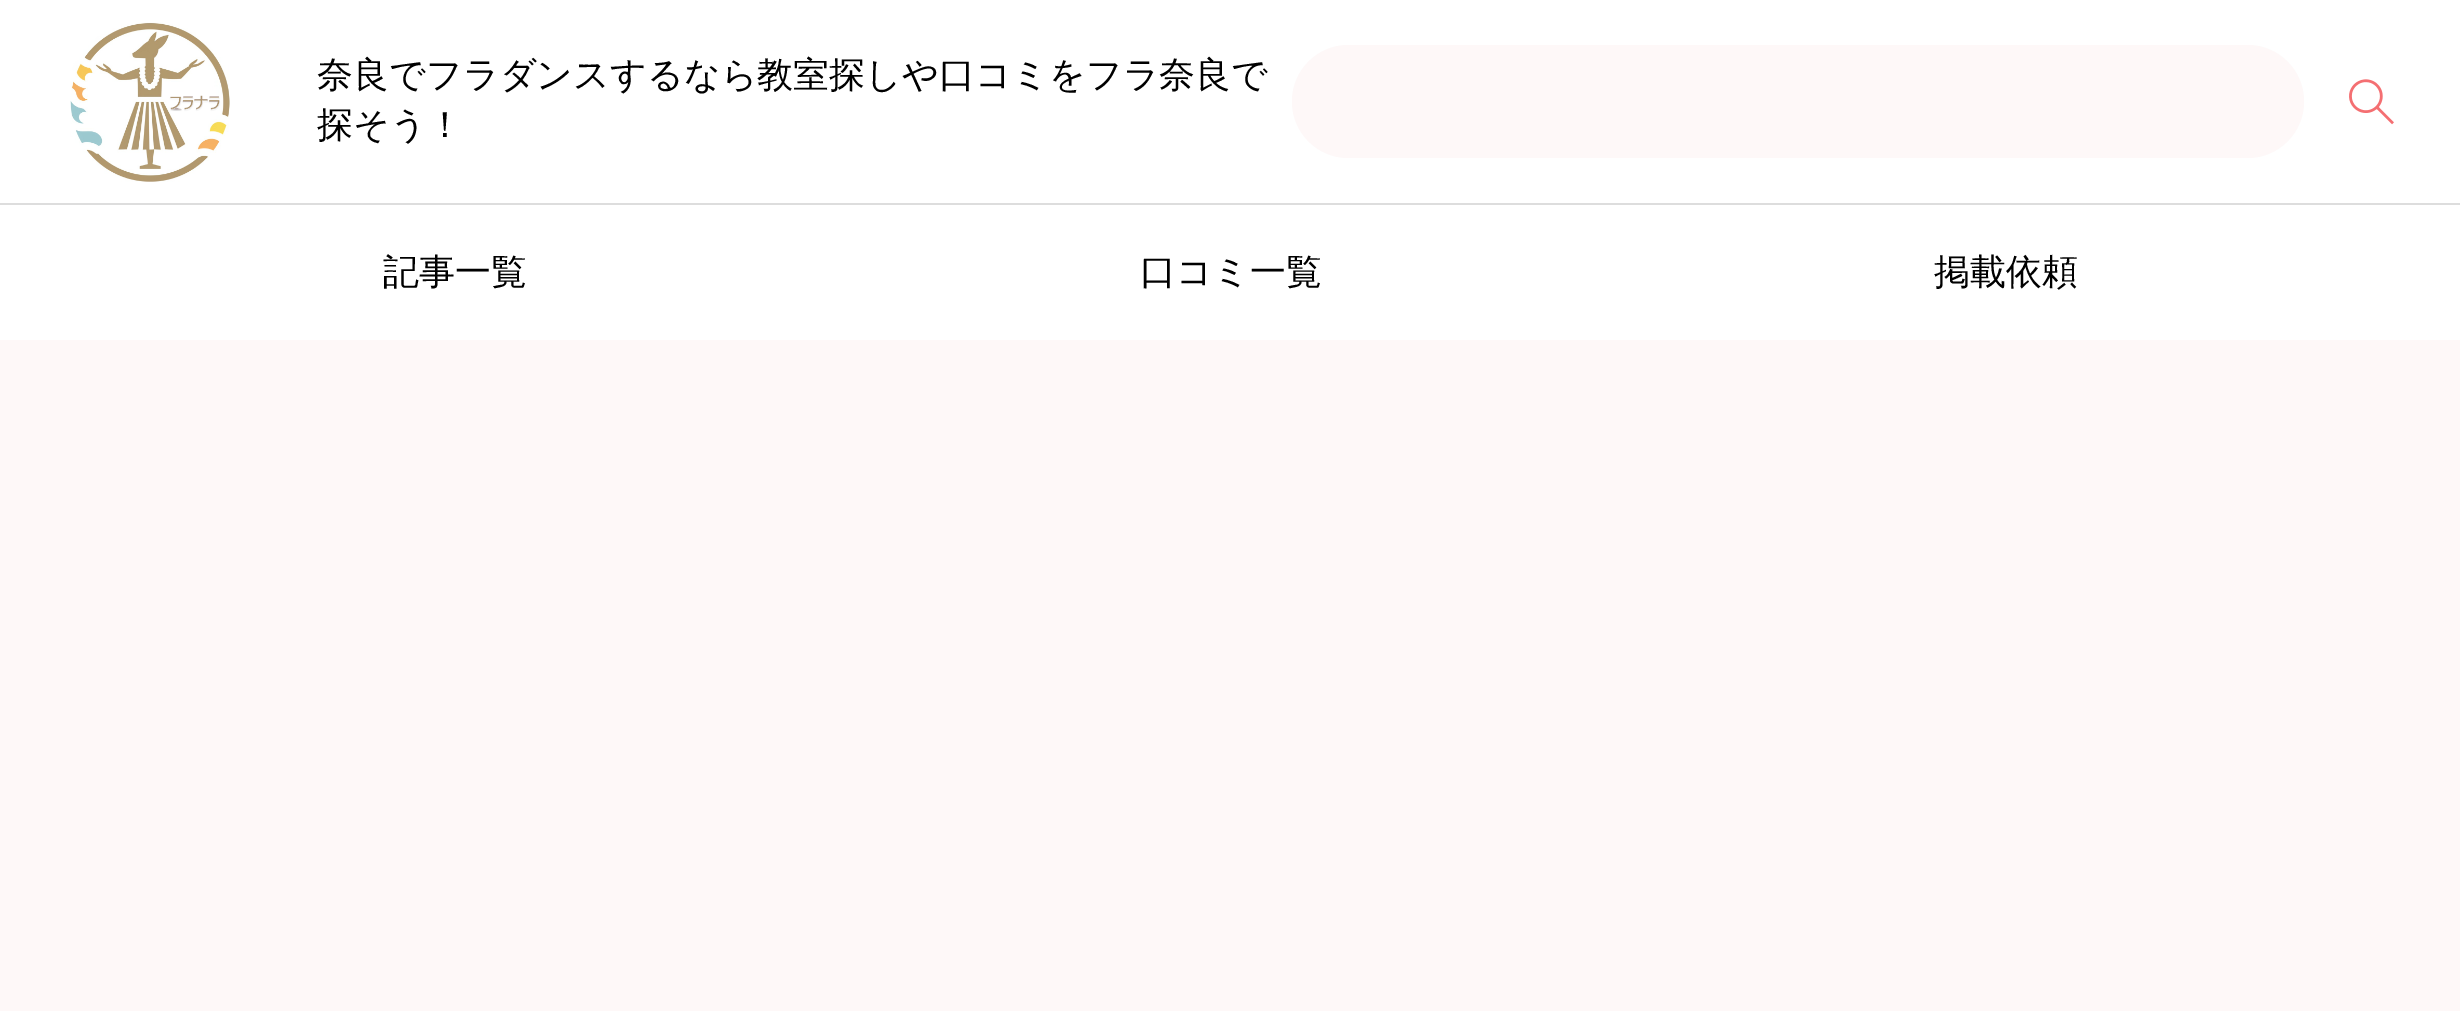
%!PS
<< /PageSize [2460 1011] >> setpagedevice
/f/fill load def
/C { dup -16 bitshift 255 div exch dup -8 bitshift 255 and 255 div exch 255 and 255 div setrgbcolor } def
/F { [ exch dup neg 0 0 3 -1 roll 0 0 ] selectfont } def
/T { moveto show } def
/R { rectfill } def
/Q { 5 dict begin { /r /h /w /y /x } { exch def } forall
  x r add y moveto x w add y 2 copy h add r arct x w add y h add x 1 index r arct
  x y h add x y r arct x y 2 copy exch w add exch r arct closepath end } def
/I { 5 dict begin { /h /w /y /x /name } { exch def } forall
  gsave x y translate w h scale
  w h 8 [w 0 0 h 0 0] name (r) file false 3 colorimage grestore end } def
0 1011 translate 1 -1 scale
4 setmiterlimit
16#FEF8F8 C
0 0 2460 1011 R
16#FFFFFF C
0 0 2460 340 R
(1.rgb) 70 22 160 160 I
/WenQuanYiZenHei-Medium 36 F
16#000000 C
(奈良でフラダンスするなら教室探しや口コミをフラ奈良で) 317 87 T
(探そう！) 317 137 T
16#FEF8F8 C
1292 45 1012 113 56.5 Q f
(2.rgb) 2349 79 45 46 I
16#DDDDDD C
0 203 2460 2 R
16#000000 C
(記事一覧) 383 284 T
(口コミ一覧) 1140 284 T
(掲載依頼) 1934 284 T
showpage
